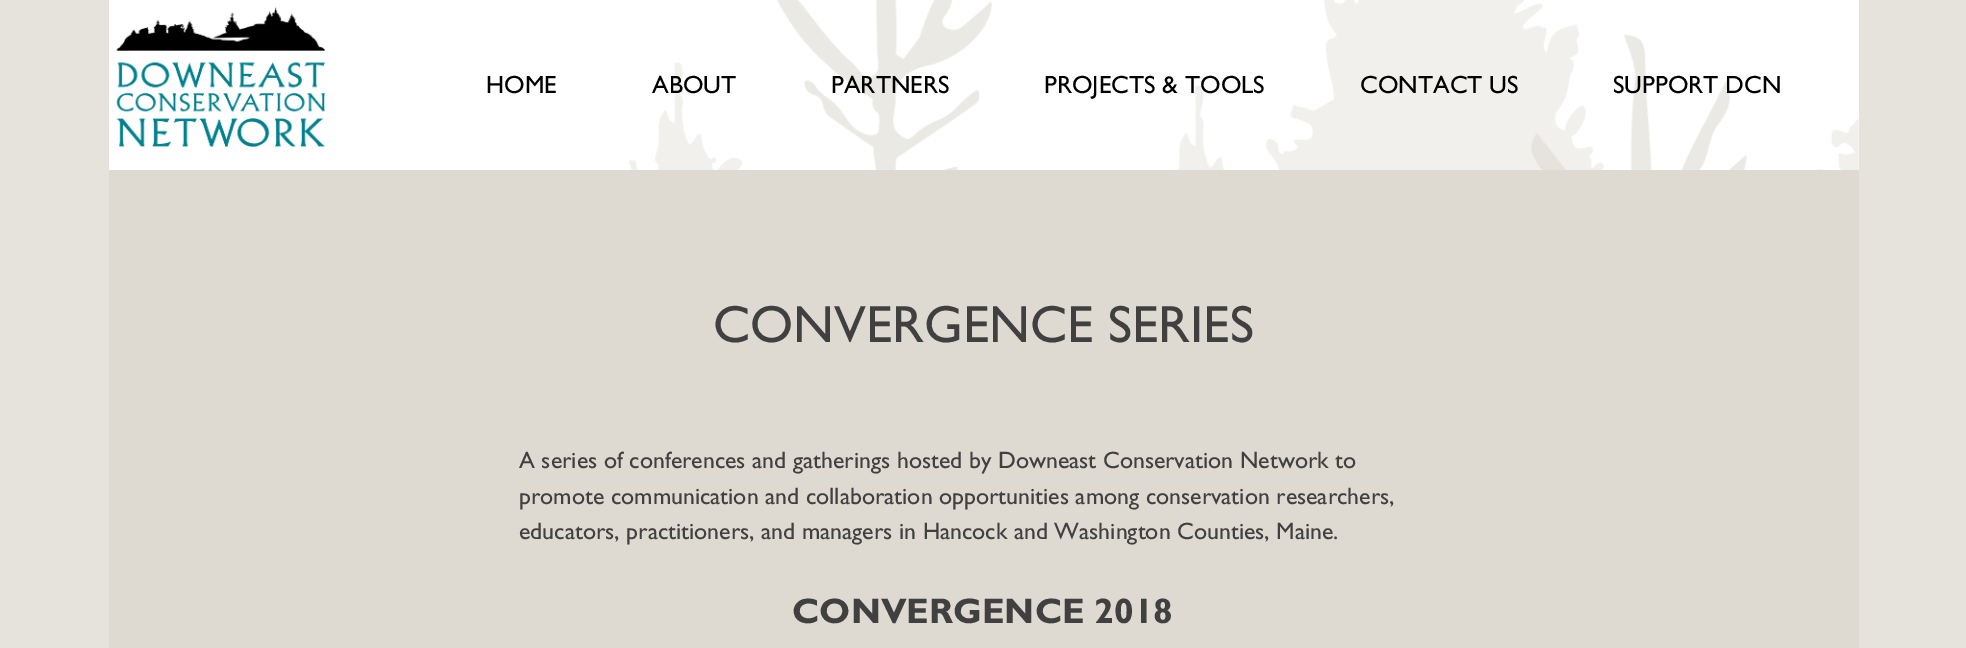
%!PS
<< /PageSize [1966 648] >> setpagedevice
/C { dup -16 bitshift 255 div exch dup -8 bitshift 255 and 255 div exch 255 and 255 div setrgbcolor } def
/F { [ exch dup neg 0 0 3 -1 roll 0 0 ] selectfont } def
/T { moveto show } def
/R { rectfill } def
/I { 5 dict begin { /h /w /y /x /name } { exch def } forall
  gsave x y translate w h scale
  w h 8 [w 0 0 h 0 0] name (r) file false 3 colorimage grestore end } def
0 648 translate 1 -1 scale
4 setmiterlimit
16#E6E3DC C
0 0 1966 648 R
16#FFFFFF C
109 0 1750 170 R
(1.rgb) 116 7 209 140 I
(2.rgb) 629 0 1230 170 I
/GillSans-Medium 25 F
16#000000 C
(HOME) 486 93 T
(ABOUT) 652 93 T
(PARTNERS) 831 93 T
(PROJECTS & TOOLS) 1044 93 T
(CONTACT US) 1360 93 T
(SUPPORT DCN) 1613 93 T
16#DEDAD1 C
109 170 1750 478 R
/GillSans-Medium 52.5 F
16#404040 C
(CONVERGENCE SERIES) 713 342 T
/GillSans-Medium 23.75 F
(A series of conferences and gatherings hosted by Downeast Conservation Network to) 519 468 T
(promote communication and collaboration opportunities among conservation researchers,) 519 504 T
(educators, practitioners, and managers in Hancock and Washington Counties, Maine.) 519 539 T
/GillSans-Bold 35.6 F
(CONVERGENCE 2018) 792 623 T
showpage
